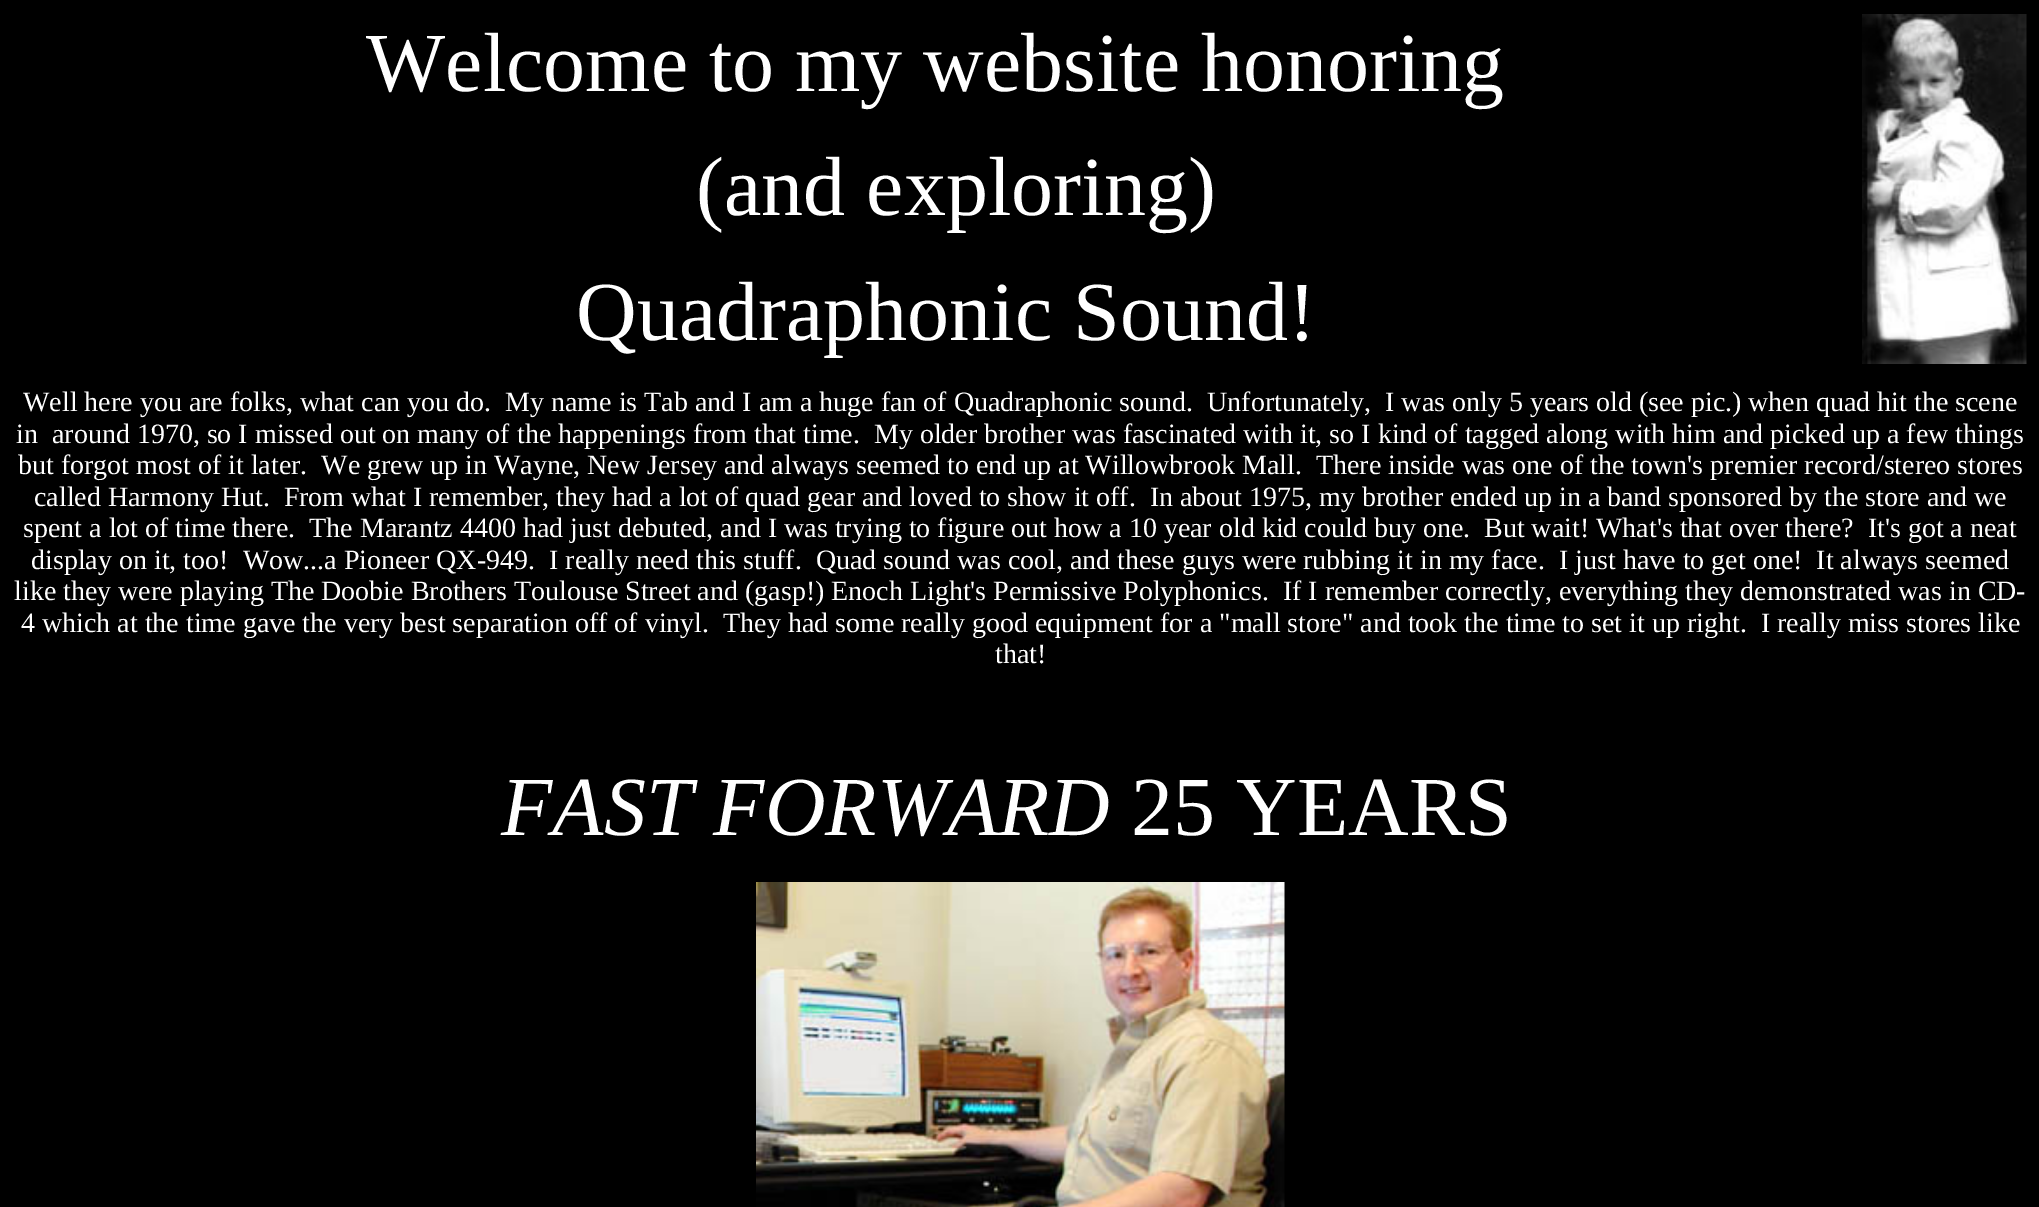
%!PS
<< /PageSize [2039 1207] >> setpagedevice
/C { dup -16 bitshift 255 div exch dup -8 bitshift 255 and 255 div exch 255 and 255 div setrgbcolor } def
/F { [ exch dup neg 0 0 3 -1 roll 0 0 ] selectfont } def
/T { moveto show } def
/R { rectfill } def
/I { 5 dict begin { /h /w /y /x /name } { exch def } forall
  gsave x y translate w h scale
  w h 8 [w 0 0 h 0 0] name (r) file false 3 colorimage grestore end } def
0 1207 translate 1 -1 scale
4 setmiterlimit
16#000000 C
0 0 2039 1207 R
/LiberationSerif-Regular 84 F
16#FFFFFF C
(Welcome to my website honoring) 366 91 T
(1.rgb) 1862 14 165 350 I
(\(and exploring\)) 696 215 T
(Quadraphonic Sound!) 576 340 T
/LiberationSerif-Regular 28 F
(Well here you are folks, what can you do.  My name is Tab and I am a huge fan of Quadraphonic sound.  Unfortunately,  I was only 5 years old \(see pic.\) when quad hit the scene) 23 411 T
(in  around 1970, so I missed out on many of the happenings from that time.  My older brother was fascinated with it, so I kind of tagged along with him and picked up a few things) 16 443 T
(but forgot most of it later.  We grew up in Wayne, New Jersey and always seemed to end up at Willowbrook Mall.  There inside was one of the town's premier record/stereo stores) 18 474 T
(called Harmony Hut.  From what I remember, they had a lot of quad gear and loved to show it off.  In about 1975, my brother ended up in a band sponsored by the store and we) 34 506 T
(spent a lot of time there.  The Marantz 4400 had just debuted, and I was trying to figure out how a 10 year old kid could buy one.  But wait! What's that over there?  It's got a neat) 23 537 T
(display on it, too!  Wow...a Pioneer QX-949.  I really need this stuff.  Quad sound was cool, and these guys were rubbing it in my face.  I just have to get one!  It always seemed) 31 569 T
(like they were playing The Doobie Brothers Toulouse Street and \(gasp!\) Enoch Light's Permissive Polyphonics.  If I remember correctly, everything they demonstrated was in CD-) 14 600 T
(4 which at the time gave the very best separation off of vinyl.  They had some really good equipment for a "mall store" and took the time to set it up right.  I really miss stores like) 21 632 T
(that!) 995 663 T
/LiberationSerif-Italic 84 F
(FAST FORWARD) 501 835 T
/LiberationSerif-Regular 84 F
(25 YEARS) 1131 835 T
(2.rgb) 756 882 529 325 I
showpage
